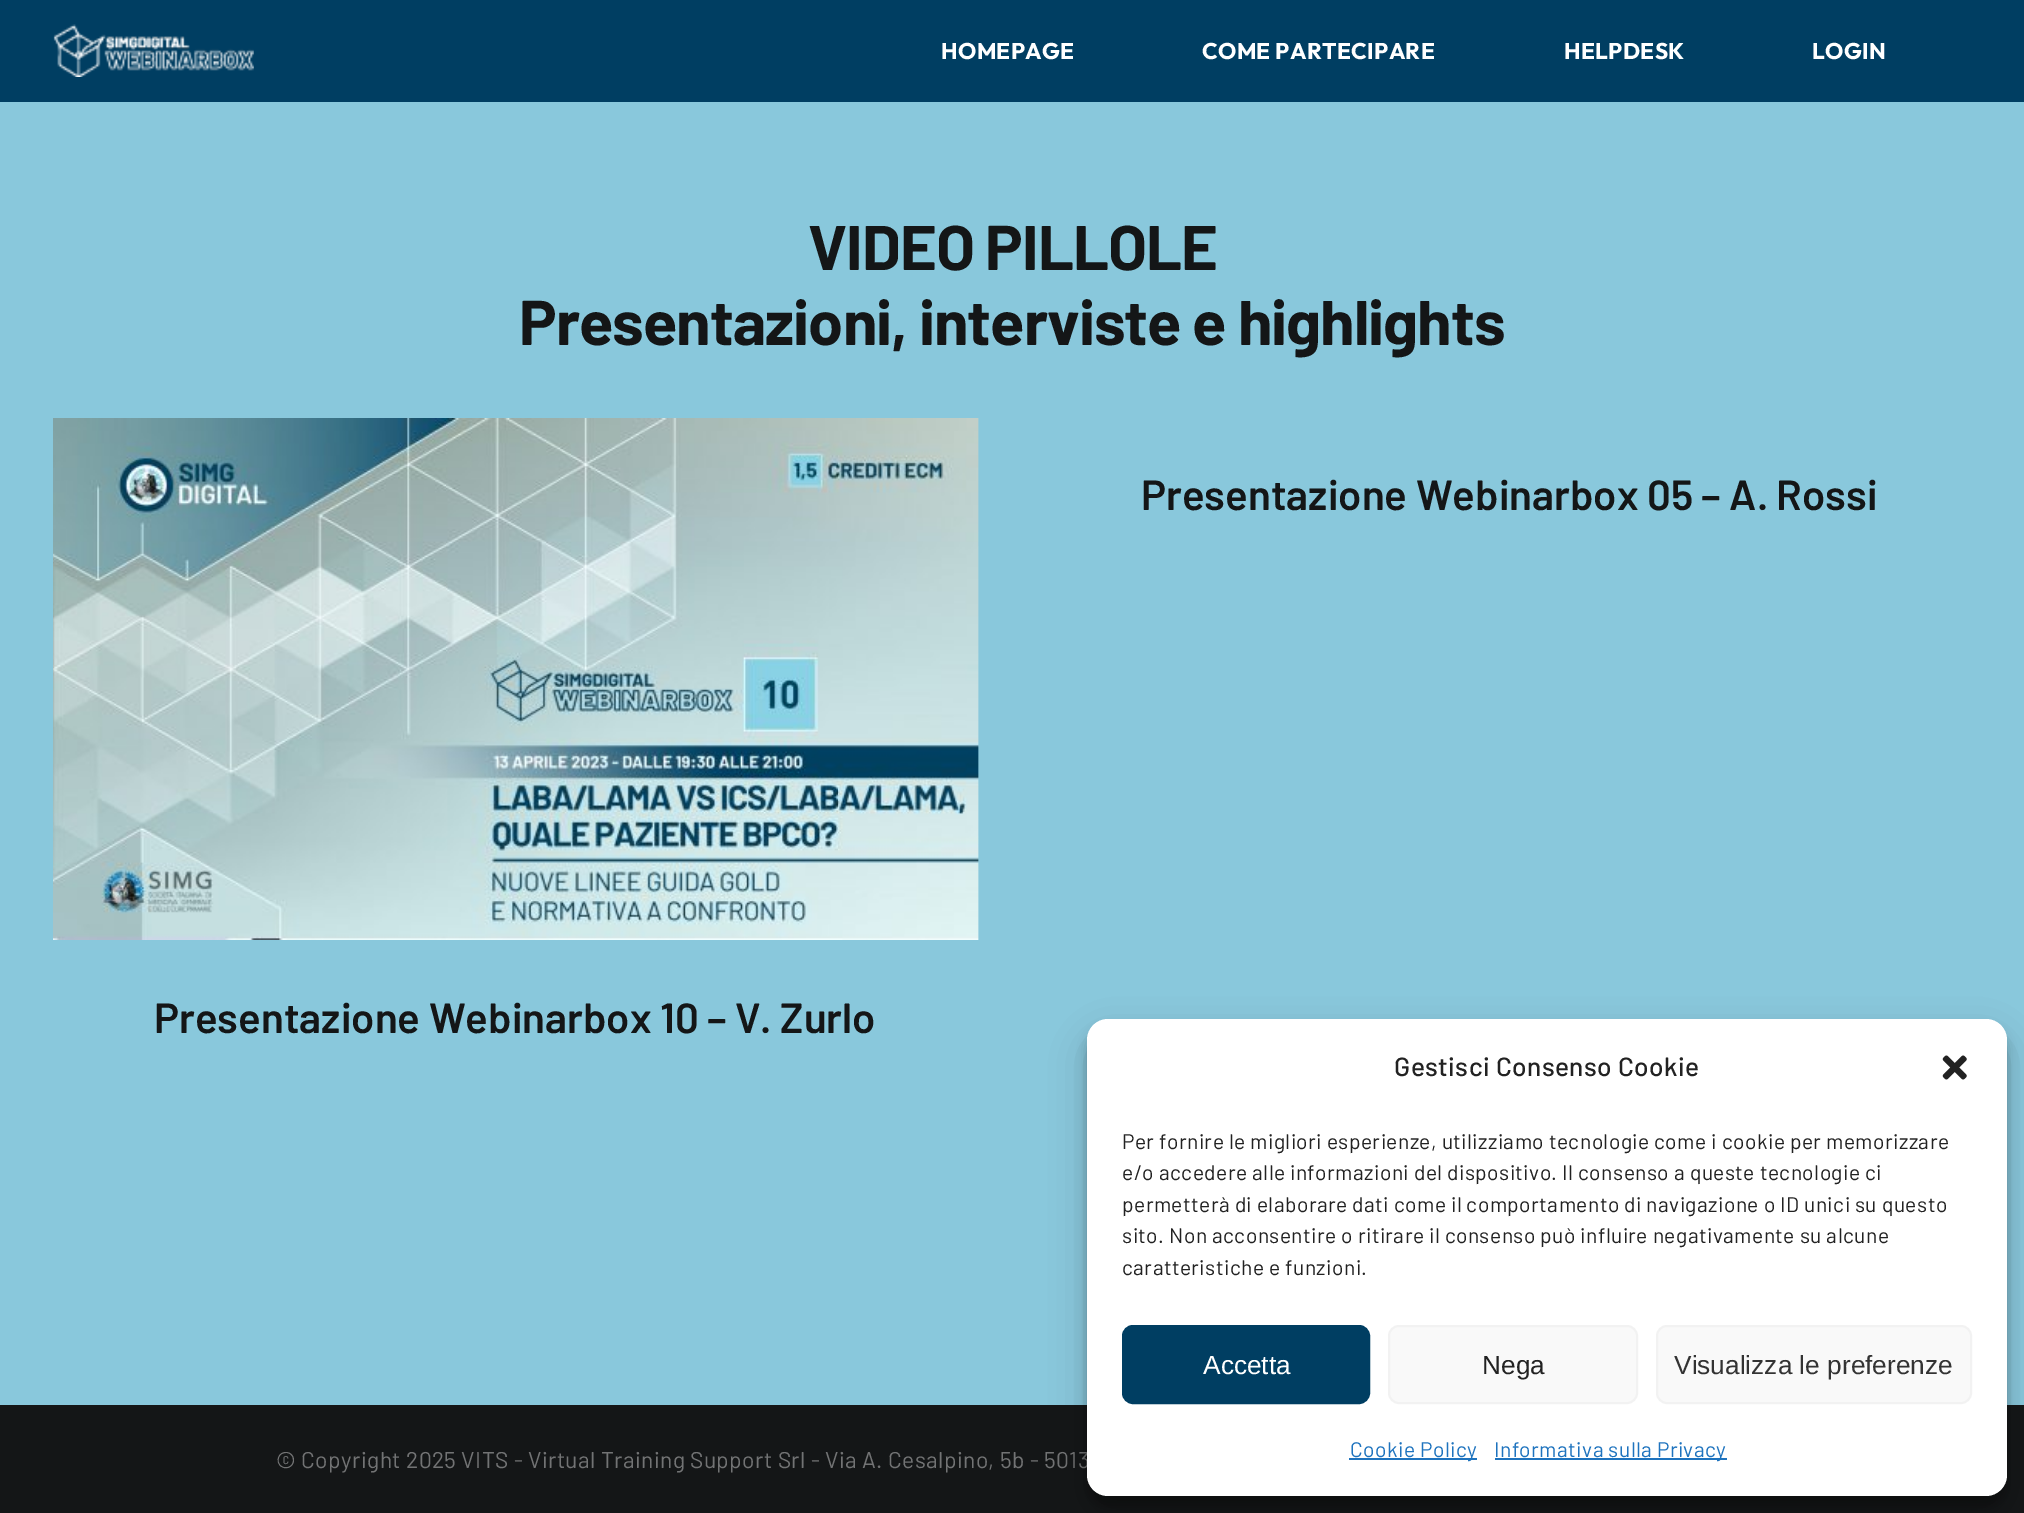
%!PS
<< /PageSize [2024 1513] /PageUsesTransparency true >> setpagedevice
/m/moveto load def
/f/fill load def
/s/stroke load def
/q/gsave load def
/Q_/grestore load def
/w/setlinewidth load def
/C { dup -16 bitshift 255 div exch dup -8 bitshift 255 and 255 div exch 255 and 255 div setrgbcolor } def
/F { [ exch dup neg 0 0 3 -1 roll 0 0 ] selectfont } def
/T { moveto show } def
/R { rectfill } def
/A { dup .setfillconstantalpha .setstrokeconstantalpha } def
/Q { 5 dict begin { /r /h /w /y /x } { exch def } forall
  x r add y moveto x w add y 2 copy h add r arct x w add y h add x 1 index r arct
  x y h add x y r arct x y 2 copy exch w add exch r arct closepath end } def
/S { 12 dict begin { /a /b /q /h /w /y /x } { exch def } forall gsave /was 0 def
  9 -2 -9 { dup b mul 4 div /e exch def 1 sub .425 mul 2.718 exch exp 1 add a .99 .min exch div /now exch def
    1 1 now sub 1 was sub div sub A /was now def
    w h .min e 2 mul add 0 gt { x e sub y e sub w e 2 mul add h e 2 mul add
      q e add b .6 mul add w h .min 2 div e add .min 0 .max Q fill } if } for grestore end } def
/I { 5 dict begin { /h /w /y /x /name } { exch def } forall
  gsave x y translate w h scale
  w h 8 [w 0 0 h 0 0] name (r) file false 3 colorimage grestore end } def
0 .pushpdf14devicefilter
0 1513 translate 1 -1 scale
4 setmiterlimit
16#89C8DC C
0 0 2024 1513 R
16#003E62 C
0 0 2024 102 R
(1.rgb) 53 24 201 53 I
/Outfit-Thin 22.75 F
16#FFFFFF C
941 59 m .3 0 (HOMEPAGE) ashow
1202 59 m .3 0 (COME PARTECIPARE) ashow
1564 59 m .3 0 (HELPDESK) ashow
1812 59 m .3 0 (LOGIN) ashow
/Barlow-Bold 63 F
16#141617 C
808 270 m -.95 0 (VIDEO PILLOLE) ashow
519 345 m -.95 0 (Presentazioni, interviste e highlights) ashow
/Barlow-SemiBold 42 F
(Presentazione Webinarbox 05 – A. Rossi) 1141 510 T
(2.rgb) 53 418 926 522 I
(Presentazione Webinarbox 10 – V. Zurlo) 154 1033 T
0 1405 2024 108 R
/Barlow-Regular 22.75 F
16#727374 C
276 1468 m .42 0 (© Copyright 2025 VITS - Virtual Training Support Srl - Via A. Cesalpino, 5b - 5013) ashow
16#000000 C
1087 1029 920 478 21 5 .23 S
1087 1036 920 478 21 17.5 .19 S
16#FFFFFF C
1087 1019 920 477 21 Q f
/Barlow-Medium 26.25 F
16#222222 C
1394 1076 m .42 0 (Gestisci Consenso Cookie) ashow
(3.rgb) 1942 1055 25 25 I
/Barlow-Regular 21 F
1122 1149 m .42 0 (Per fornire le migliori esperienze, utilizziamo tecnologie come i cookie per memorizzare) ashow
1122 1180 m .42 0 (e/o accedere alle informazioni del dispositivo. Il consenso a queste tecnologie ci) ashow
1122 1212 m .42 0 (permetterà di elaborare dati come il comportamento di navigazione o ID unici su questo) ashow
1122 1243 m .42 0 (sito. Non acconsentire o ritirare il consenso può influire negativamente su alcune) ashow
1122 1275 m .42 0 (caratteristiche e funzioni.) ashow
16#003E62 C
1123 1326 246 77 10 Q q f Q_
2 w
s
/LiberationSans-Regular 26.25 F
16#FFFFFF C
(Accetta) 1203 1374 T
16#F9F9F9 C
1389 1326 248 77 10 Q q f Q_
16#F2F2F2 C
s
16#222222 C
(Nega) 1482 1374 T
16#F9F9F9 C
1657 1326 314 77 10 Q q f Q_
16#F2F2F2 C
s
16#333333 C
(Visualizza le preferenze) 1674 1374 T
16#1E73BE C
1349 1458 128 2 R
/Barlow-Regular 21 F
1350 1457 m .42 0 (Cookie Policy) ashow
1495 1458 232 2 R
1494 1457 m .42 0 (Informativa sulla Privacy) ashow
.poppdf14devicefilter showpage
